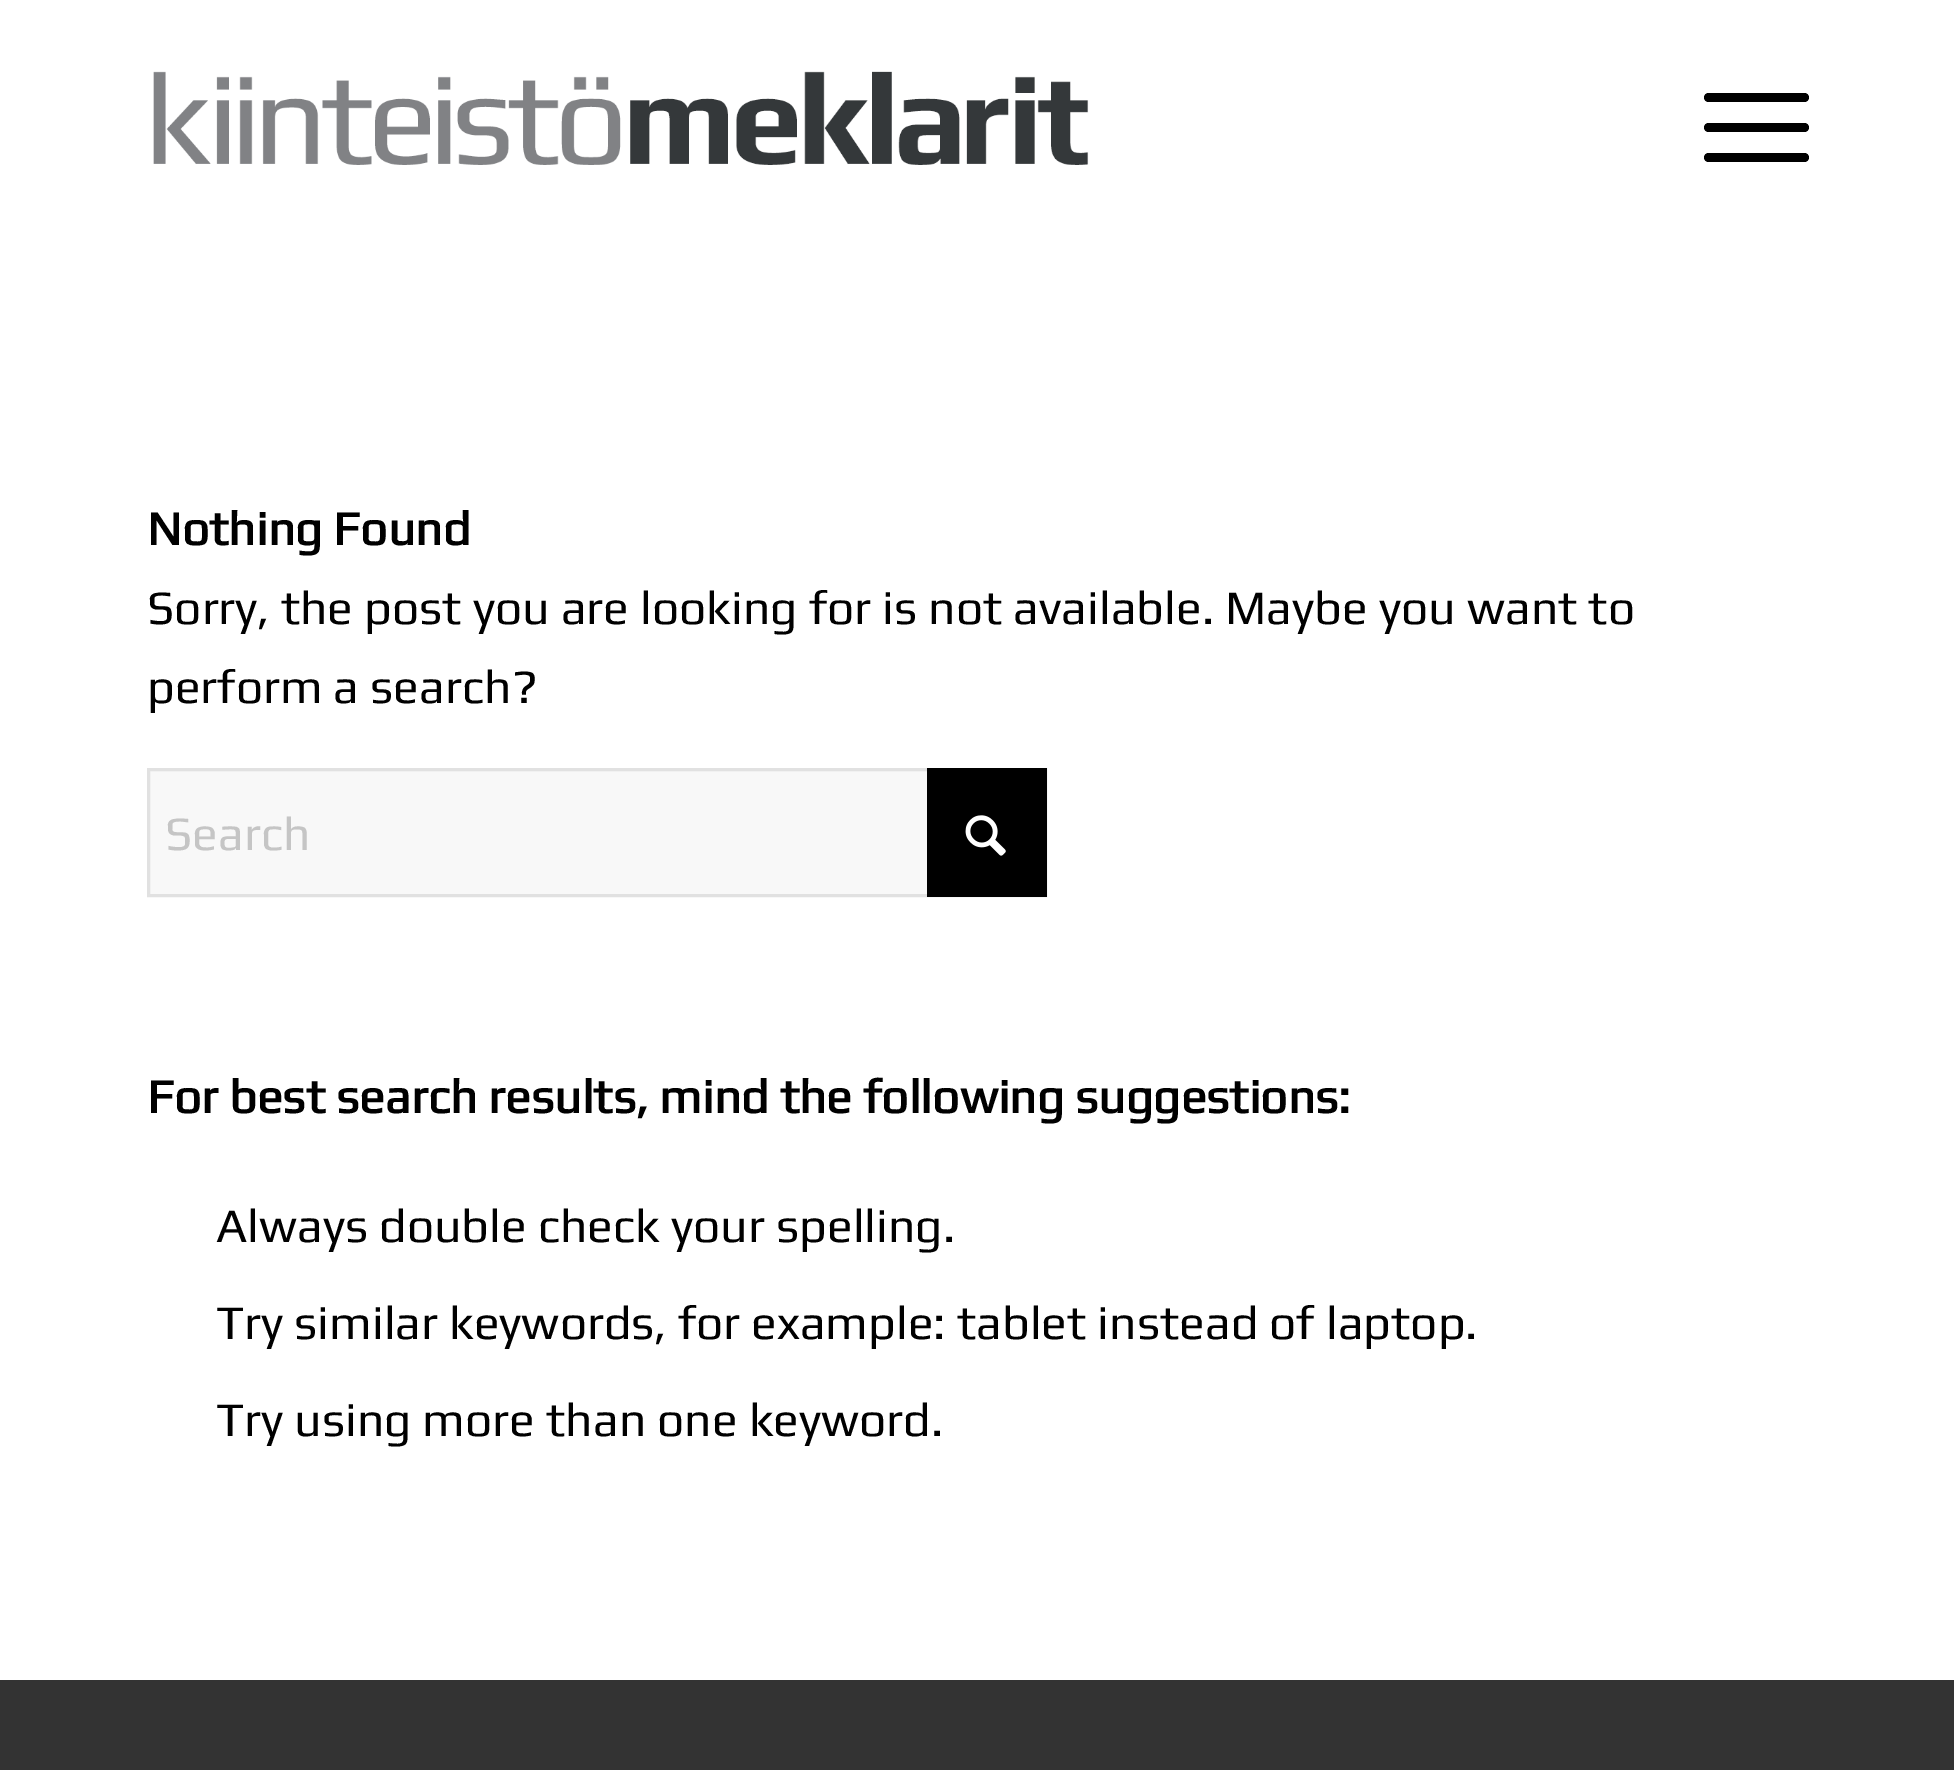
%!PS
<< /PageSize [1954 1770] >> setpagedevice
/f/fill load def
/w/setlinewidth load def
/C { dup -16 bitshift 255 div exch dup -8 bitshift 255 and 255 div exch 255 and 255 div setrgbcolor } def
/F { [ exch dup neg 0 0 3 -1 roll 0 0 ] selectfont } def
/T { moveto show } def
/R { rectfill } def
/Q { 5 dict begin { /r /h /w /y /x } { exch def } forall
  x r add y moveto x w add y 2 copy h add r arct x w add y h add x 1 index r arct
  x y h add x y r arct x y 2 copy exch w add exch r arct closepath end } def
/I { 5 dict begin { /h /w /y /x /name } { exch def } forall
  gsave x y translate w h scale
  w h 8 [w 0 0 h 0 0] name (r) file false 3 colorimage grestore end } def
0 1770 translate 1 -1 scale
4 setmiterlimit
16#333333 C
0 0 1954 1770 R
16#FFFFFF C
0 0 1954 1680 R
(1.rgb) 153 71 936 94 I
16#000000 C
1704 123 105 9 4.5 Q f
1704 93 105 9 4.5 Q f
1704 153 105 9 4.5 Q f
/Play-Bold 48 F
(Nothing Found) 147 545 T
/Play-Regular 48 F
(Sorry, the post you are looking for is not available. Maybe you want to) 147 624 T
(perform a search?) 147 703 T
16#F8F8F8 C
150 771 777 123 R
16#E1E1E1 C
3 w
148.5 769.5 897 126 rectstroke
16#000000 C
927 768 120 129 R
16#C5C5C5 C
(Search) 165 850 T
(2.rgb) 965 815 41 41 I
/Play-Bold 48 F
16#000000 C
(For best search results, mind the following suggestions:) 147 1113 T
/Play-Regular 48 F
(Always double check your spelling.) 216 1242 T
(Try similar keywords, for example: tablet instead of laptop.) 216 1339 T
(Try using more than one keyword.) 216 1436 T
showpage
